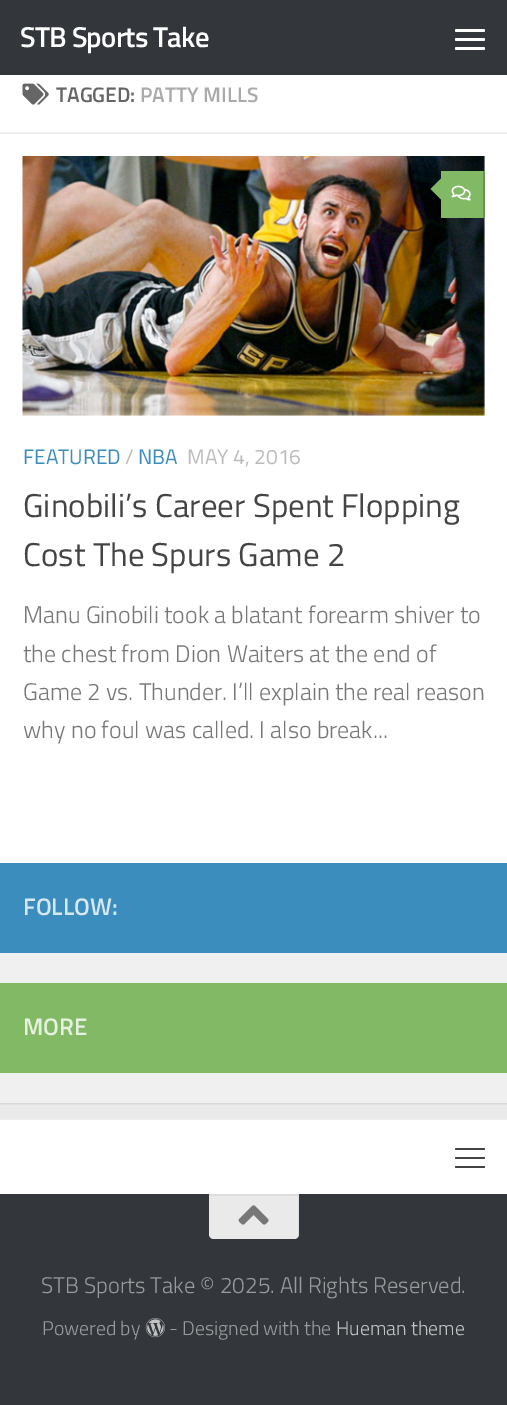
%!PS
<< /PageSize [507 1405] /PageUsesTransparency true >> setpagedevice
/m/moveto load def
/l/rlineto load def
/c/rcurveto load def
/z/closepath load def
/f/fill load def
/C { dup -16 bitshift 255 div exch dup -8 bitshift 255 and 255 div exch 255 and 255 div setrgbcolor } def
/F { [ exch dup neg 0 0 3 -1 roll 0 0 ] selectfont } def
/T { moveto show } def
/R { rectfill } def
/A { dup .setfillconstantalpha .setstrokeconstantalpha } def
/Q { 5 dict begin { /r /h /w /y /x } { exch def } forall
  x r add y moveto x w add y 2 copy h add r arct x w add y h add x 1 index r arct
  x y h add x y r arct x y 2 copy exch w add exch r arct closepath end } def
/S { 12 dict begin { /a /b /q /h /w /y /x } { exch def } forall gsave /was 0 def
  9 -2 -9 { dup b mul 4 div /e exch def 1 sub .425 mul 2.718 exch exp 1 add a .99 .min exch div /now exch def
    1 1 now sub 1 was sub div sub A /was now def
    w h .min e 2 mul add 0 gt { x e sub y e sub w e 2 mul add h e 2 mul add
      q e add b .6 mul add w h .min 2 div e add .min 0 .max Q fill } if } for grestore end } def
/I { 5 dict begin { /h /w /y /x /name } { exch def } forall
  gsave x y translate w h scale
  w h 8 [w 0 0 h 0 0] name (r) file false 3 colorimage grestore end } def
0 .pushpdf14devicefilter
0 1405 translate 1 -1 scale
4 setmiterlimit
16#EAEAEA C
0 0 507 1405 R
16#000000 C
0 62 507 1042 0 1 .1 S
16#33363B C
0 0 507 75 R
/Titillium-SemiBold 28.75 F
16#FFFFFF C
20 47 m -.75 0 (STB Sports Take) ashow
455 29 30 3 1.5 Q f
455 38 30 3 1.5 Q f
455 47 30 3 1.5 Q f
0 75 507 788 R
16#EEEEEE C
0 132 507 2 R
(1.rgb) 22 83 27 22 I
/Titillium-SemiBold 21 F
16#666666 C
(TAGGED:) 56 102 T
16#AAAAAA C
(PATTY MILLS) 140 102 T
(2.rgb) 22 156 463 260 I
16#82B965 C
441 171 42 47 R
16#689451 C
483 171 2 47 R
16#82B965 C
444 175.5 m 0 27 l -13.5 -13.5 l z f
(3.rgb) 451 185 20 16 I
/Titillium-Regular 21 F
16#3B8DBD C
(FEATURED) 23 464 T
16#BBBBBB C
(/) 125 464 T
16#3B8DBD C
(NBA) 138 464 T
16#BBBBBB C
(MAY 4, 2016) 187 464 T
/Titillium-Regular 33 F
16#444444 C
(Ginobili’s Career Spent Flopping) 23 517 T
(Cost The Spurs Game 2) 23 566 T
/Titillium-Light 24 F
16#767676 C
(Manu Ginobili took a blatant forearm shiver to) 23 623 T
(the chest from Dion Waiters at the end of) 23 662 T
(Game 2 vs. Thunder. I’ll explain the real reason) 23 700 T
(why no foul was called. I also break...) 23 738 T
16#F0F0F0 C
0 953 507 30 R
16#3B8DBD C
0 863 507 90 R
/Titillium-SemiBold 24 F
16#D8E8F2 C
(FOLLOW:) 23 915 T
16#F0F0F0 C
0 1073 507 30 R
16#82B965 C
0 983 507 90 R
16#E6F1E0 C
(MORE) 23 1035 T
16#FFFFFF C
0 1120 507 74 R
16#EEEEEE C
0 1118 507 2 R
16#444444 C
455 1148 30 2 1 Q f
455 1157 30 2 1 Q f
455 1166 30 2 1 Q f
16#33363B C
0 1194 507 211 R
16#EAEAEA C
209 1194 m 90 0 l 0 40 l 0 3 -2 5 -5 5 c -80 0 l -3 0 -5 -2 -5 -5 c z f
0.05 A
16#000000 C
209 1194 m 0 2 l 89 0 l 0 41 l 1 -1 1 -2 1 -3 c 0 -40 l z f
1 A
(4.rgb) 238 1205 31 20 I
/Titillium-Light 22.5 F
16#999B9D C
(STB Sports Take © 2025. All Rights Reserved.) 41 1293 T
/Titillium-Light 19.75 F
(Powered by) 42 1335 T
(5.rgb) 145 1318 20 20 I
(- Designed with the) 169 1335 T
16#C2C3C4 C
(Hueman theme) 336 1335 T
.poppdf14devicefilter showpage
